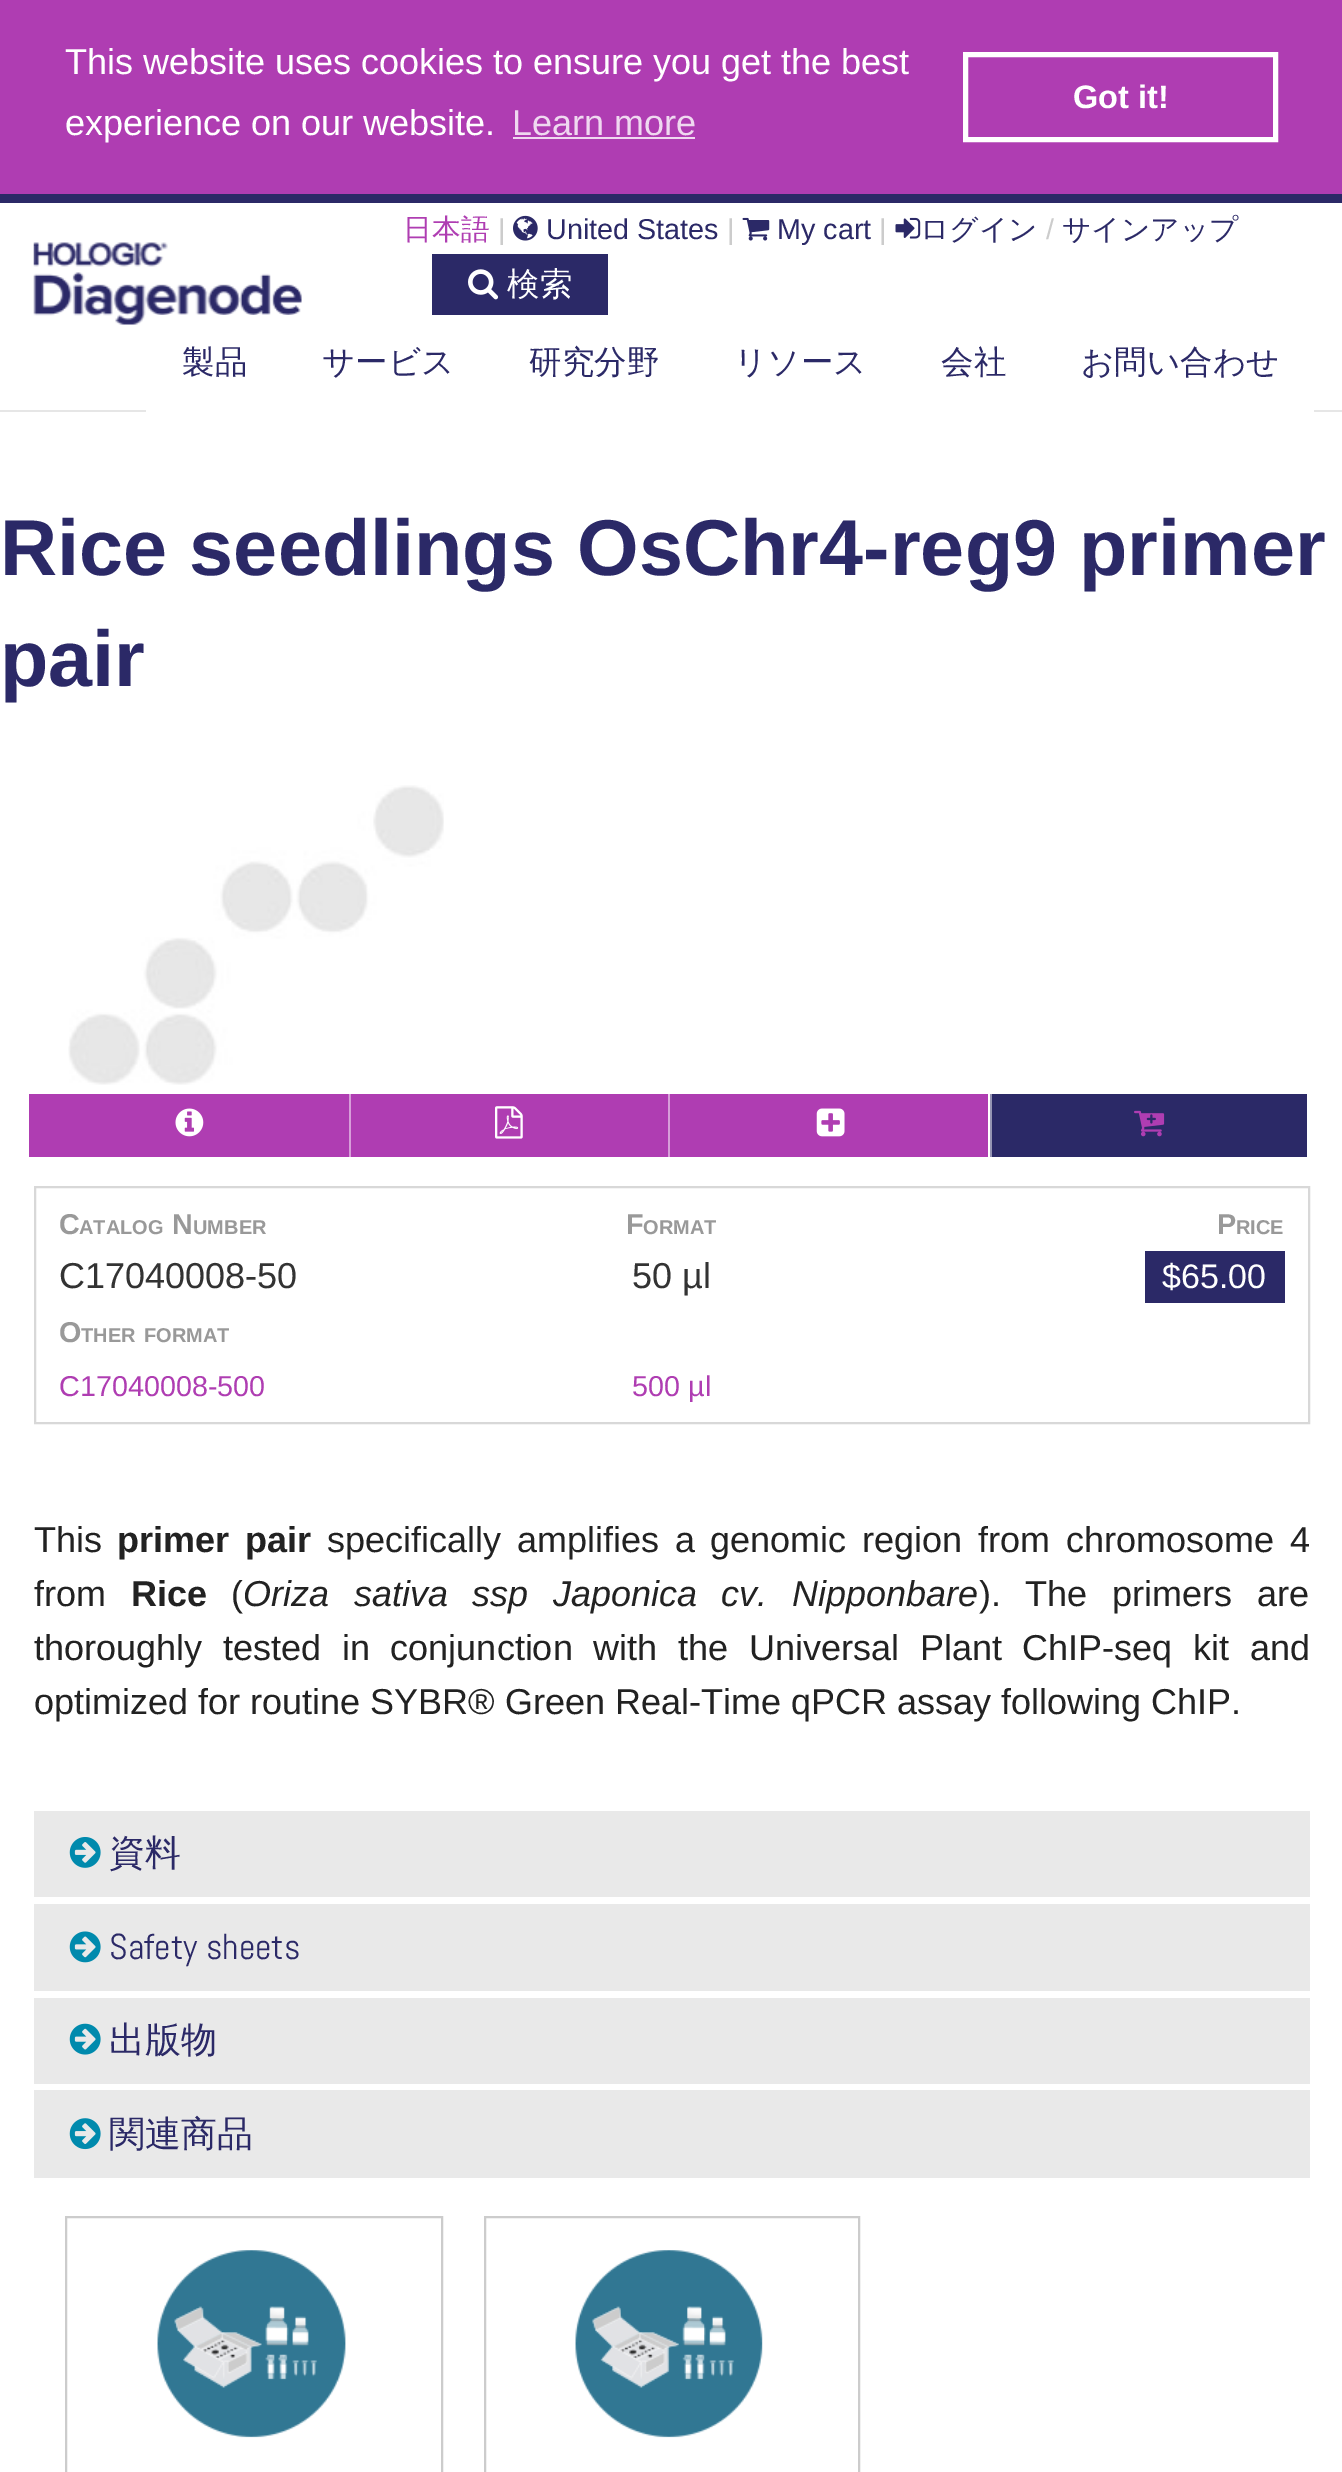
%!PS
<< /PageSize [1342 2472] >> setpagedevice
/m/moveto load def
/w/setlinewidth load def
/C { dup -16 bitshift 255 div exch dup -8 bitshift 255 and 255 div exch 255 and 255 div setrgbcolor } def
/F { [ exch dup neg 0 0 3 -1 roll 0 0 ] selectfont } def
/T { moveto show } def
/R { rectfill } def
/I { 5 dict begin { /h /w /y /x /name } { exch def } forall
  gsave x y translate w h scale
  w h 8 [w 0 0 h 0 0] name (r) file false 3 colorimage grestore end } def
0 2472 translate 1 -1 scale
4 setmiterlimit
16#FFFFFF C
0 0 1342 2472 R
16#AF3DB2 C
0 0 1342 194 R
/LiberationSans-Regular 36 F
16#FFFFFF C
(This website uses cookies to ensure you get the best) 65 74 T
(experience on our website.) 65 135 T
16#EFD8F0 C
(Learn more) 512 135 T
513 137 182 2 R
16#FFFFFF C
5 w
965.5 54.5 310 85 rectstroke
/LiberationSans-Bold 32.5 F
(Got it!) 1073 108 T
16#2B2967 C
0 194 1342 9 R
16#E6E6E6 C
0 410 1342 2 R
(1.rgb) 33 242 269 83 I
/WenQuanYiZenHei-Medium 28.75 F
16#AF3DB2 C
(日本語) 403 239 T
/LiberationSans-Regular 28.75 F
16#CCCCCC C
(|) 498 239 T
(2.rgb) 513 215 25 26 I
16#2B2967 C
(United States) 546 239 T
16#CCCCCC C
(|) 727 239 T
(3.rgb) 742 217 28 24 I
16#2B2967 C
(My cart) 777 239 T
16#CCCCCC C
(|) 879 239 T
(4.rgb) 895 217 26 22 I
/WenQuanYiZenHei-Medium 28.75 F
16#2B2967 C
(ログイン) 920 239 T
/LiberationSans-Regular 28.75 F
16#CCCCCC C
(/) 1046 239 T
/WenQuanYiZenHei-Medium 28.75 F
16#2B2967 C
(サインアップ) 1062 239 T
432 254 176 61 R
(5.rgb) 468 269 31 31 I
/WenQuanYiZenHei-Medium 32.5 F
16#FFFFFF C
(検索) 507 295 T
146 315 345 97 R
16#2B2967 C
(製品) 182 373 T
(サービス) 322 373 T
16#FFFFFF C
491 410 823 2 R
16#2B2967 C
(研究分野) 529 373 T
(リソース) 734 373 T
(会社) 941 373 T
(お問い合わせ) 1081 373 T
/LiberationSans-Bold 79.25 F
(Rice seedlings OsChr4-reg9 primer) 0 575 T
(pair) 0 686 T
(6.rgb) 68 785 376 300 I
16#AF3DB2 C
29 1094 320 63 R
(7.rgb) 175 1108 29 29 I
351 1094 317 63 R
16#D79ED9 C
349 1094 2 63 R
(8.rgb) 495 1106 28 33 I
16#AF3DB2 C
670 1094 318 63 R
16#D79ED9 C
668 1094 2 63 R
(9.rgb) 816 1108 29 29 I
16#2B2967 C
992 1094 315 63 R
16#9594B3 C
990 1094 2 63 R
(10.rgb) 1134 1110 31 27 I
16#D8D8D8 C
2 w
35 1187 1274 236 rectstroke
/LiberationSans-Bold 28.75 F
16#999999 C
(C) 59 1234 T
/LiberationSans-Bold 20 F
(ATALOG) 79 1234 T
/LiberationSans-Bold 28.75 F
(N) 172 1234 T
/LiberationSans-Bold 20 F
(UMBER) 193 1234 T
/LiberationSans-Bold 28.75 F
(F) 626 1234 T
/LiberationSans-Bold 20 F
(ORMAT) 643 1234 T
/LiberationSans-Bold 28.75 F
(P) 1217 1234 T
/LiberationSans-Bold 20 F
(RICE) 1236 1234 T
/LiberationSans-Regular 36 F
16#333333 C
(C17040008-50) 59 1288 T
(50 µl) 632 1288 T
16#2B2967 C
1145 1251 140 52 R
/LiberationSans-Regular 34 F
16#FFFFFF C
($65.00) 1162 1288 T
/LiberationSans-Bold 28.75 F
16#999999 C
(O) 59 1342 T
/LiberationSans-Bold 20 F
(THER) 81 1342 T
(FORMAT) 144 1342 T
/LiberationSans-Regular 28.75 F
16#AF3DB2 C
(C17040008-500) 59 1396 T
(500 µl) 632 1396 T
/LiberationSans-Regular 36 F
16#222222 C
(This) 34 1552 T
/LiberationSans-Bold 36 F
117 1552 m 5.75 0 32 (primer pair) widthshow
/LiberationSans-Regular 36 F
327 1552 m 5.75 0 32 (specifically amplifies a genomic region from chromosome 4) widthshow
(from) 34 1606 T
/LiberationSans-Bold 36 F
(Rice) 131 1606 T
/LiberationSans-Regular 36 F
(\() 231 1606 T
/LiberationSans-Italic 36 F
243 1606 m 14.5 0 32 (Oriza sativa ssp Japonica cv. Nipponbare) widthshow
/LiberationSans-Regular 36 F
979 1606 m 14.5 0 32 (\). The primers are) widthshow
34 1660 m 10.75 0 32 (thoroughly tested in conjunction with the Universal Plant ChIP-seq kit and) widthshow
(optimized for routine SYBR® Green Real-Time qPCR assay following ChIP.) 34 1714 T
16#E9E9E9 C
34 1811 1276 86 R
(11.rgb) 69 1837 32 31 I
/WenQuanYiZenHei-Medium 36 F
16#2B2967 C
(資料) 109 1865 T
16#E9E9E9 C
34 1904 1276 87 R
(12.rgb) 69 1931 32 32 I
/Abel-Regular 36 F
16#2B2967 C
(Safety sheets) 109 1959 T
16#E9E9E9 C
34 1998 1276 86 R
(13.rgb) 69 2023 32 32 I
/WenQuanYiZenHei-Medium 36 F
16#2B2967 C
(出版物) 109 2052 T
16#E9E9E9 C
34 2090 1276 88 R
(14.rgb) 69 2118 32 32 I
16#2B2967 C
(関連商品) 109 2146 T
16#CCCCCC C
66 2217 376 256 rectstroke
(15.rgb) 157 2250 189 188 I
485 2217 374 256 rectstroke
(16.rgb) 575 2250 188 188 I
showpage
